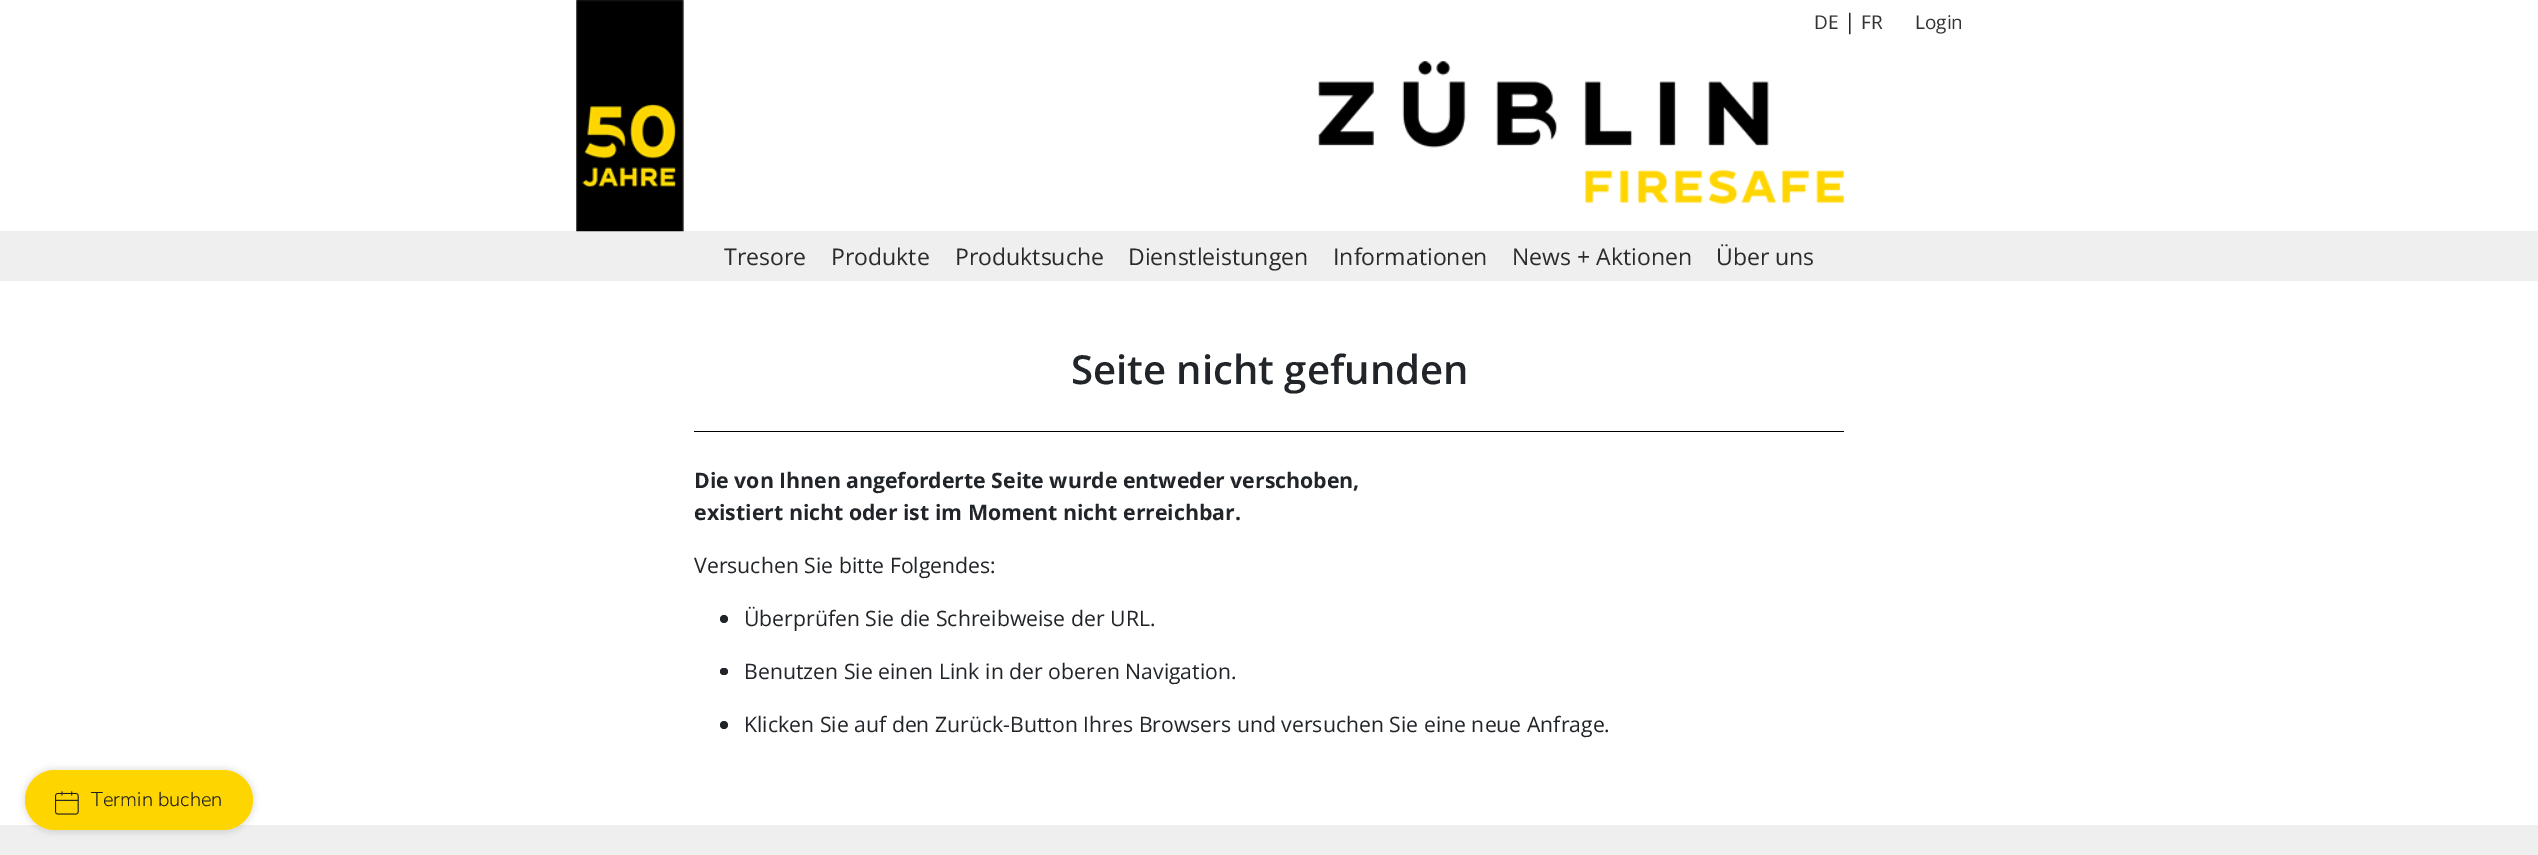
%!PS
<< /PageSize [2538 855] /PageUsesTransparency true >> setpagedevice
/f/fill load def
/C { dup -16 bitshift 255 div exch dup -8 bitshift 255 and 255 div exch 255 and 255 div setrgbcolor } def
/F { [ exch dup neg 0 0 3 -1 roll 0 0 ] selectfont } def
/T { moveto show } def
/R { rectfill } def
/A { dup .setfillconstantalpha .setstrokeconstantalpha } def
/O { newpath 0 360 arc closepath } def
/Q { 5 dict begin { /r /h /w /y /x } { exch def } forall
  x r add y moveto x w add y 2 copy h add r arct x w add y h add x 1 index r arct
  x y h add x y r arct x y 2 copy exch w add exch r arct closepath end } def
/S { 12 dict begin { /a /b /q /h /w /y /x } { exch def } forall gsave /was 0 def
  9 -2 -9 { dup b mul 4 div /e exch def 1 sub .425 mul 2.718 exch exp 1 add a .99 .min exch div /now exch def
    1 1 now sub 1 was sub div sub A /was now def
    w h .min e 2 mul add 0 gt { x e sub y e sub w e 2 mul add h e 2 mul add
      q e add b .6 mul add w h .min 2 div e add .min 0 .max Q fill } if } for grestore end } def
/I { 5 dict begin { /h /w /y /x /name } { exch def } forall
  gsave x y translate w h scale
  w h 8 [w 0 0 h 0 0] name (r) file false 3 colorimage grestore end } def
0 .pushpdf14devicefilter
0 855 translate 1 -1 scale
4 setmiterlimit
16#FFFFFF C
0 0 2538 855 R
16#EFEFEF C
0 231 2538 50 R
(1.rgb) 576 0 108 232 I
/OpenSans-Regular 19 F
16#333333 C
(DE) 1814 29 T
/OpenSans-Regular 21.25 F
16#212529 C
(|) 1844 29 T
/OpenSans-Regular 19 F
16#333333 C
(FR) 1861 29 T
(Login) 1915 29 T
(2.rgb) 1318 61 526 143 I
/OpenSans-Regular 23 F
16#2B2B2B C
(Tresore) 724 265 T
(Produkte) 831 265 T
(Produktsuche) 955 265 T
(Dienstleistungen) 1128 265 T
(Informationen) 1333 265 T
(News + Aktionen) 1512 265 T
(Über uns) 1716 265 T
16#000000 C
694 431 1150 1 R
/OpenSans-SemiBold 40 F
16#212529 C
(Seite nicht gefunden) 1071 384 T
/OpenSans-Bold 21.25 F
(Die von Ihnen angeforderte Seite wurde entweder verschoben,) 694 488 T
(existiert nicht oder ist im Moment nicht erreichbar.) 694 520 T
/OpenSans-Regular 21.25 F
(Versuchen Sie bitte Folgendes:) 694 573 T
724 619 4 O f
(Überprüfen Sie die Schreibweise der URL.) 744 626 T
720 668 8 7 3.5 Q f
(Benutzen Sie einen Link in der oberen Navigation.) 744 679 T
724 725 4 O f
(Klicken Sie auf den Zurück-Button Ihres Browsers und versuchen Sie eine neue Anfrage.) 744 732 T
16#EFEFEF C
0 825 2538 30 R
16#000000 C
23 768 232 65 32.5 3 .1 S
16#FFD500 C
25 770 228 60 30 Q f
(3.rgb) 55 791 24 24 I
/Nunito-Light 20 F
16#1F1F1F C
(Termin buchen) 91 806 T
.poppdf14devicefilter showpage
